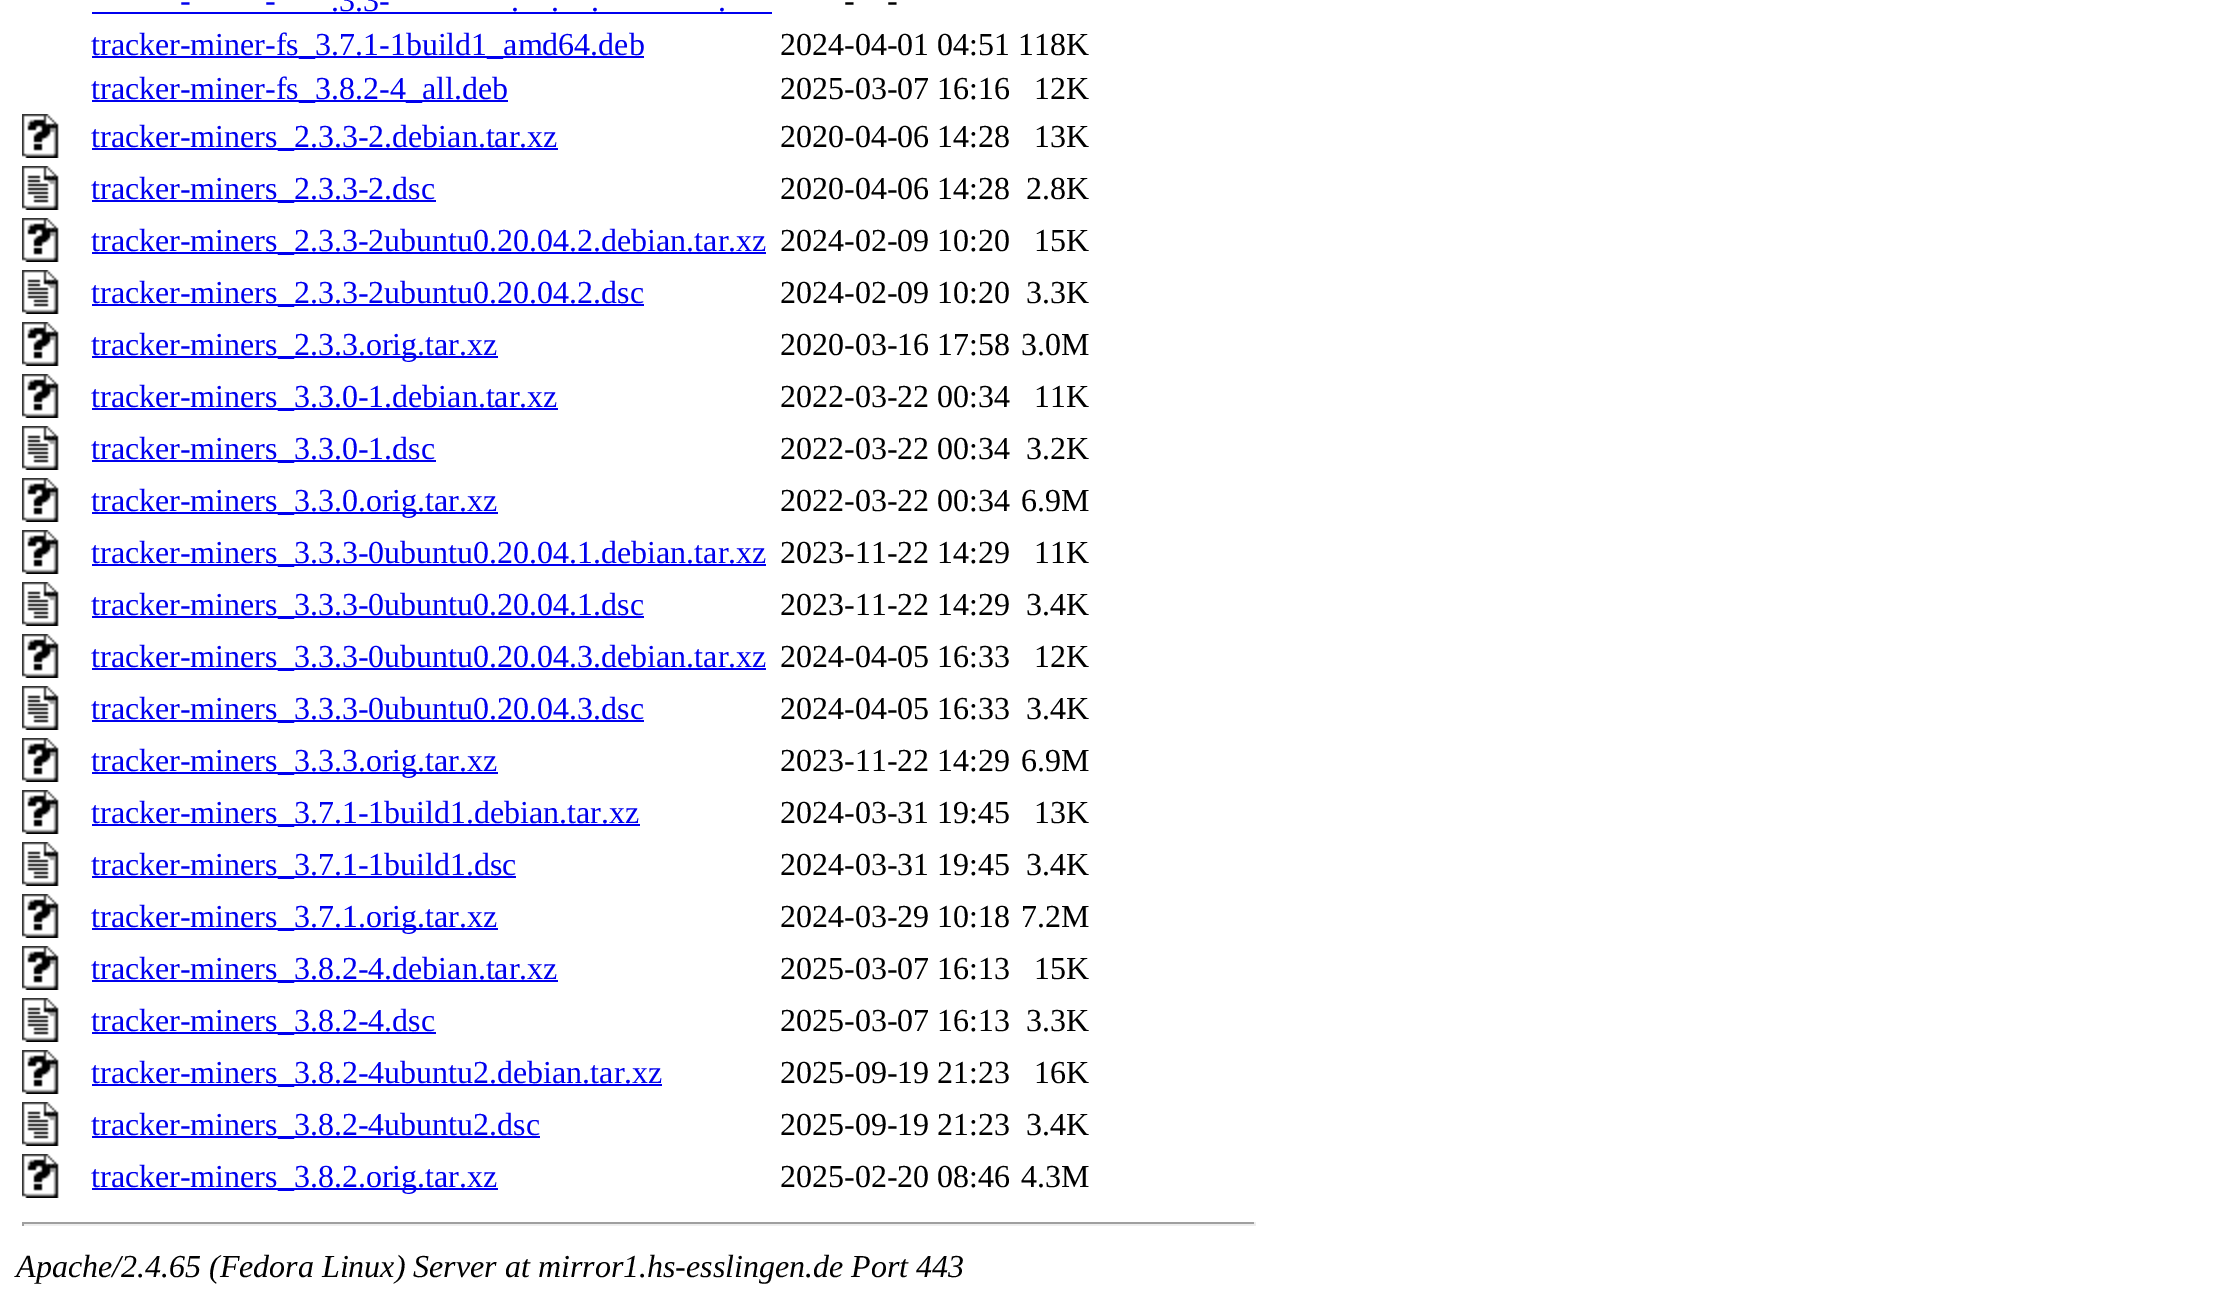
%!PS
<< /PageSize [2216 1300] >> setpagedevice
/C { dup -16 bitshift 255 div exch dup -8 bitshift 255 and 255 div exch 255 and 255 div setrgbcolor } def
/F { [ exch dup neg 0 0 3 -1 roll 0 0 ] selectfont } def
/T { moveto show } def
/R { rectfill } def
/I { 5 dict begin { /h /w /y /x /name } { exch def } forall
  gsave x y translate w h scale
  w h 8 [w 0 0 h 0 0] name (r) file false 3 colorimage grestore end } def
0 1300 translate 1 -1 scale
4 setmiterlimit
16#FFFFFF C
0 0 2216 1300 R
/LiberationSerif-Regular 32 F
16#0000EE C
(-) 180 11 T
(-) 265 11 T
(.3.3-) 331 11 T
(.) 511 11 T
(.) 551 11 T
(.) 591 11 T
(.) 718 11 T
92 12 680 2 R
16#000000 C
(-) 844 11 T
(-) 887 11 T
16#0000EE C
92 56 552 2 R
(tracker-miner-fs_3.7.1-1build1_amd64.deb) 91 55 T
16#000000 C
(2024-04-01 04:51 118K) 780 55 T
16#0000EE C
92 100 416 2 R
(tracker-miner-fs_3.8.2-4_all.deb) 91 99 T
16#000000 C
(2025-03-07 16:16) 780 99 T
(12K) 1034 99 T
(1.rgb) 22 114 37 44 I
16#0000EE C
92 148 466 2 R
(tracker-miners_2.3.3-2.debian.tar.xz) 91 147 T
16#000000 C
(2020-04-06 14:28) 780 147 T
(13K) 1034 147 T
(2.rgb) 22 166 37 44 I
16#0000EE C
92 200 344 2 R
(tracker-miners_2.3.3-2.dsc) 91 199 T
16#000000 C
(2020-04-06 14:28) 780 199 T
(2.8K) 1026 199 T
(1.rgb) 22 218 37 44 I
16#0000EE C
92 252 674 2 R
(tracker-miners_2.3.3-2ubuntu0.20.04.2.debian.tar.xz) 91 251 T
16#000000 C
(2024-02-09 10:20) 780 251 T
(15K) 1034 251 T
(2.rgb) 22 270 37 44 I
16#0000EE C
92 304 552 2 R
(tracker-miners_2.3.3-2ubuntu0.20.04.2.dsc) 91 303 T
16#000000 C
(2024-02-09 10:20) 780 303 T
(3.3K) 1026 303 T
(1.rgb) 22 322 37 44 I
16#0000EE C
92 356 406 2 R
(tracker-miners_2.3.3.orig.tar.xz) 91 355 T
16#000000 C
(2020-03-16 17:58) 780 355 T
(3.0M) 1021 355 T
(1.rgb) 22 374 37 44 I
16#0000EE C
92 408 466 2 R
(tracker-miners_3.3.0-1.debian.tar.xz) 91 407 T
16#000000 C
(2022-03-22 00:34) 780 407 T
(11K) 1034 407 T
(2.rgb) 22 426 37 44 I
16#0000EE C
92 460 344 2 R
(tracker-miners_3.3.0-1.dsc) 91 459 T
16#000000 C
(2022-03-22 00:34) 780 459 T
(3.2K) 1026 459 T
(1.rgb) 22 478 37 44 I
16#0000EE C
92 512 406 2 R
(tracker-miners_3.3.0.orig.tar.xz) 91 511 T
16#000000 C
(2022-03-22 00:34) 780 511 T
(6.9M) 1021 511 T
(1.rgb) 22 530 37 44 I
16#0000EE C
92 564 674 2 R
(tracker-miners_3.3.3-0ubuntu0.20.04.1.debian.tar.xz) 91 563 T
16#000000 C
(2023-11-22 14:29) 780 563 T
(11K) 1034 563 T
(2.rgb) 22 582 37 44 I
16#0000EE C
92 616 552 2 R
(tracker-miners_3.3.3-0ubuntu0.20.04.1.dsc) 91 615 T
16#000000 C
(2023-11-22 14:29) 780 615 T
(3.4K) 1026 615 T
(1.rgb) 22 634 37 44 I
16#0000EE C
92 668 674 2 R
(tracker-miners_3.3.3-0ubuntu0.20.04.3.debian.tar.xz) 91 667 T
16#000000 C
(2024-04-05 16:33) 780 667 T
(12K) 1034 667 T
(2.rgb) 22 686 37 44 I
16#0000EE C
92 720 552 2 R
(tracker-miners_3.3.3-0ubuntu0.20.04.3.dsc) 91 719 T
16#000000 C
(2024-04-05 16:33) 780 719 T
(3.4K) 1026 719 T
(1.rgb) 22 738 37 44 I
16#0000EE C
92 772 406 2 R
(tracker-miners_3.3.3.orig.tar.xz) 91 771 T
16#000000 C
(2023-11-22 14:29) 780 771 T
(6.9M) 1021 771 T
(1.rgb) 22 790 37 44 I
16#0000EE C
92 824 548 2 R
(tracker-miners_3.7.1-1build1.debian.tar.xz) 91 823 T
16#000000 C
(2024-03-31 19:45) 780 823 T
(13K) 1034 823 T
(2.rgb) 22 842 37 44 I
16#0000EE C
92 876 424 2 R
(tracker-miners_3.7.1-1build1.dsc) 91 875 T
16#000000 C
(2024-03-31 19:45) 780 875 T
(3.4K) 1026 875 T
(1.rgb) 22 894 37 44 I
16#0000EE C
92 928 406 2 R
(tracker-miners_3.7.1.orig.tar.xz) 91 927 T
16#000000 C
(2024-03-29 10:18) 780 927 T
(7.2M) 1021 927 T
(1.rgb) 22 946 37 44 I
16#0000EE C
92 980 466 2 R
(tracker-miners_3.8.2-4.debian.tar.xz) 91 979 T
16#000000 C
(2025-03-07 16:13) 780 979 T
(15K) 1034 979 T
(2.rgb) 22 998 37 44 I
16#0000EE C
92 1032 344 2 R
(tracker-miners_3.8.2-4.dsc) 91 1031 T
16#000000 C
(2025-03-07 16:13) 780 1031 T
(3.3K) 1026 1031 T
(1.rgb) 22 1050 37 44 I
16#0000EE C
92 1084 570 2 R
(tracker-miners_3.8.2-4ubuntu2.debian.tar.xz) 91 1083 T
16#000000 C
(2025-09-19 21:23) 780 1083 T
(16K) 1034 1083 T
(2.rgb) 22 1102 37 44 I
16#0000EE C
92 1136 448 2 R
(tracker-miners_3.8.2-4ubuntu2.dsc) 91 1135 T
16#000000 C
(2025-09-19 21:23) 780 1135 T
(3.4K) 1026 1135 T
(1.rgb) 22 1154 37 44 I
16#0000EE C
92 1188 406 2 R
(tracker-miners_3.8.2.orig.tar.xz) 91 1187 T
16#000000 C
(2025-02-20 08:46) 780 1187 T
(4.3M) 1021 1187 T
16#9F9F9F C
22 1222 1234 2 R
16#EEEEEE C
1254 1222 2 4 R
22 1224 1234 2 R
16#9F9F9F C
22 1222 2 4 R
/LiberationSerif-Italic 32 F
16#000000 C
(Apache/2.4.65 \(Fedora Linux\) Server at mirror1.hs-esslingen.de Port 443) 16 1277 T
showpage
